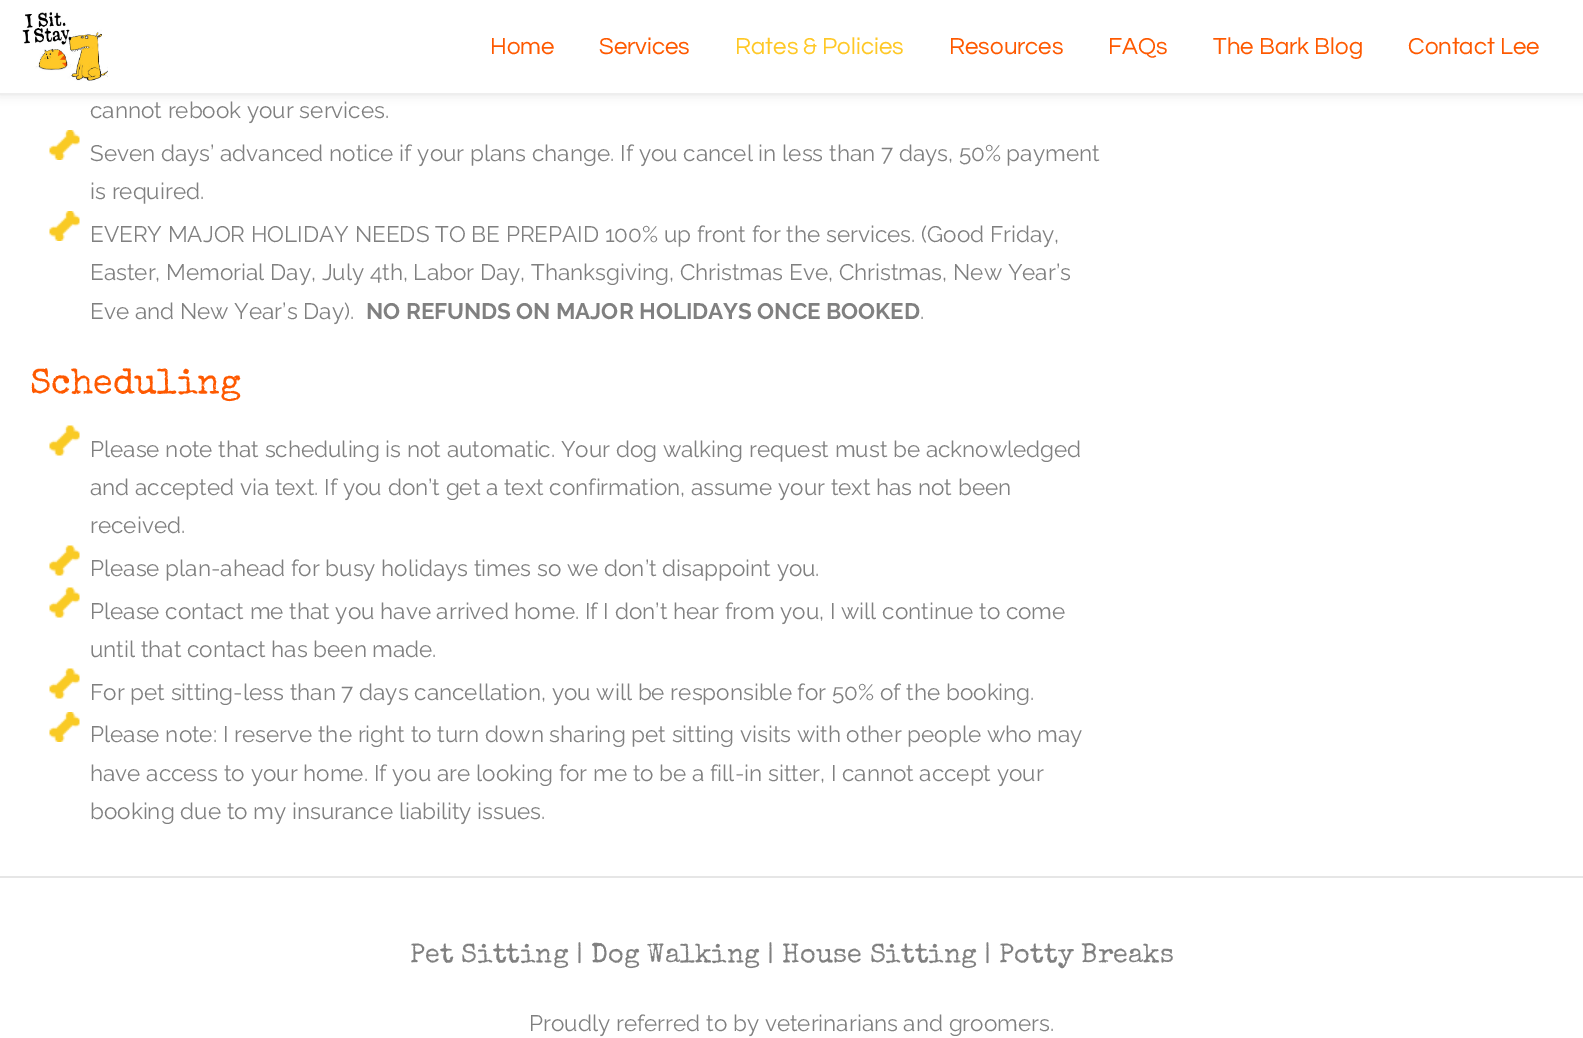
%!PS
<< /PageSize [1583 1038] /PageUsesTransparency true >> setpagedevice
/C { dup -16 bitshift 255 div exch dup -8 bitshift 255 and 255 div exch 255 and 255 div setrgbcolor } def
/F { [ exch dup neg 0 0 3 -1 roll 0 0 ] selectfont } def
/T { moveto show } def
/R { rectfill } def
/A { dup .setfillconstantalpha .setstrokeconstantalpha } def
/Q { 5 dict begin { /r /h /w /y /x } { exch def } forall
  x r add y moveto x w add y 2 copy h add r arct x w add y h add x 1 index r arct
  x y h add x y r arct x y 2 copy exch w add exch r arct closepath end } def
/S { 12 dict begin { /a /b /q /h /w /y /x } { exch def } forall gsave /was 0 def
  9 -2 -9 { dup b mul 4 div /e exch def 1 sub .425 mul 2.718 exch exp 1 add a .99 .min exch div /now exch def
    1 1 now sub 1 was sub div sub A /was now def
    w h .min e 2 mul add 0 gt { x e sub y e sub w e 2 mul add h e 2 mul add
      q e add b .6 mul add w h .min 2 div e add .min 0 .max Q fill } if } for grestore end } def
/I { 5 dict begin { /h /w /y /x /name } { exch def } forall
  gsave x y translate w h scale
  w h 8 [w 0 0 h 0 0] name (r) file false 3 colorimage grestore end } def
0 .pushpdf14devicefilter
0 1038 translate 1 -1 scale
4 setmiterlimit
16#FFFFFF C
0 0 1583 1038 R
16#000000 C
0 0 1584 95 0 5 .1 S
16#FFFFFF C
0 0 1583 93 R
16#EEEEEE C
0 93 1583 2 R
(1.rgb) 22 12 86 69 I
/Questrial-Regular 24 F
16#FE5900 C
(Home) 490 54 T
(Services) 599 54 T
16#FFC827 C
(Rates & Policies) 735 54 T
16#FE5900 C
(Resources) 949 54 T
(FAQs) 1108 54 T
(The Bark Blog) 1213 54 T
(Contact Lee) 1408 54 T
/Raleway-Regular 22.5 F
16#808080 C
(cannot rebook your services.) 90 118 T
(2.rgb) 49 130 31 30 I
(Seven days’ advanced notice if your plans change. If you cancel in less than 7 days, 50% payment) 90 161 T
(is required.) 90 199 T
(2.rgb) 49 211 31 30 I
(EVERY MAJOR HOLIDAY NEEDS TO BE PREPAID 100% up front for the services. \(Good Friday,) 90 242 T
(Easter, Memorial Day, July 4th, Labor Day, Thanksgiving, Christmas Eve, Christmas, New Year’s) 90 280 T
(Eve and New Year’s Day\).) 90 319 T
/Raleway-Bold 22.5 F
(NO REFUNDS ON MAJOR HOLIDAYS ONCE BOOKED) 366 319 T
/Raleway-Regular 22.5 F
(.) 920 319 T
/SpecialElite-Regular 36 F
16#FE5900 C
(Scheduling) 30 393 T
(3.rgb) 49 425 31 31 I
/Raleway-Regular 22.5 F
16#808080 C
(Please note that scheduling is not automatic. Your dog walking request must be acknowledged) 90 457 T
(and accepted via text. If you don’t get a text confirmation, assume your text has not been) 90 495 T
(received.) 90 533 T
(3.rgb) 49 545 31 31 I
(Please plan-ahead for busy holidays times so we don’t disappoint you.) 90 576 T
(3.rgb) 49 587 31 31 I
(Please contact me that you have arrived home. If I don’t hear from you, I will continue to come) 90 619 T
(until that contact has been made.) 90 657 T
(3.rgb) 49 668 31 31 I
(For pet sitting-less than 7 days cancellation, you will be responsible for 50% of the booking.) 90 700 T
(2.rgb) 49 712 31 30 I
(Please note: I reserve the right to turn down sharing pet sitting visits with other people who may) 90 742 T
(have access to your home. If you are looking for me to be a fill-in sitter, I cannot accept your) 90 781 T
(booking due to my insurance liability issues.) 90 819 T
16#E6E6E6 C
0 876 1583 2 R
/SpecialElite-Regular 27 F
16#808080 C
(Pet Sitting | Dog Walking | House Sitting | Potty Breaks) 410 962 T
/Raleway-Regular 22.5 F
(Proudly referred to by veterinarians and groomers.) 529 1031 T
.poppdf14devicefilter showpage
